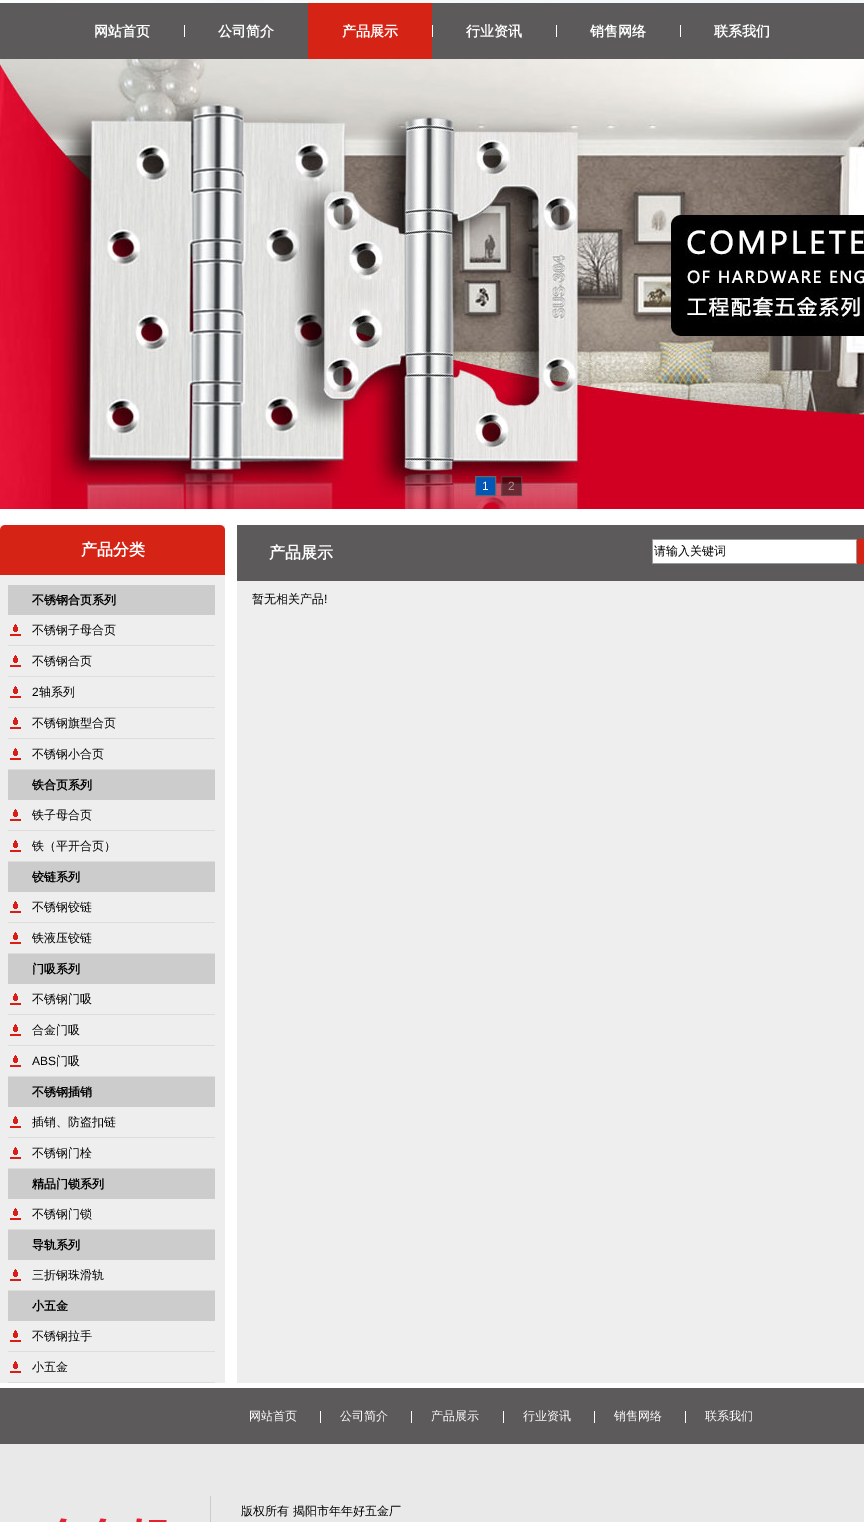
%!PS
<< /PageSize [864 1522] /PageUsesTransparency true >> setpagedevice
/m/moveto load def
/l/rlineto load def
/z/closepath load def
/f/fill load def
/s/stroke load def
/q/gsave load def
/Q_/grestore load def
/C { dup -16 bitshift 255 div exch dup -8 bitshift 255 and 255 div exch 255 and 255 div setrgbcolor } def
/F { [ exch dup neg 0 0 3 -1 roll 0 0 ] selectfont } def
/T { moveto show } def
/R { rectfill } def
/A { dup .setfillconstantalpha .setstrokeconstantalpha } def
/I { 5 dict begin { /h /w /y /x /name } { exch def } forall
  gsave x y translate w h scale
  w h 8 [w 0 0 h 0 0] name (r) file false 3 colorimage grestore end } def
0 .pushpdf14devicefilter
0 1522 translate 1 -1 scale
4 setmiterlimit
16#FFFFFF C
0 0 864 1522 R
(1.rgb) 0 0 864 3 I
16#5C5A5A C
0 3 864 56 R
/WenQuanYiZenHei-Bold 14 F
16#FFFFFF C
(网站首页) 94 36 T
184 25 1 12 R
(公司简介) 218 36 T
16#D52416 C
308 3 124 56 R
16#FFFFFF C
(产品展示) 342 36 T
432 25 1 12 R
(行业资讯) 466 36 T
556 25 1 12 R
(销售网络) 590 36 T
680 25 1 12 R
(联系我们) 714 36 T
(2.rgb) 0 59 864 450 I
16#0057B7 C
475.5 476.5 m 20 0 l 0 19 l -20 0 l z q f Q_
16#666666 C
s
/LiberationSans-Regular 12 F
16#FFFFFF C
(1) 482 490 T
0.5 A
16#000000 C
501 476 21 20 R
16#666666 C
501.5 476.5 20 19 rectstroke
1 A
16#B09095 C
(2) 508 490 T
16#EEEEEE C
0 525 225 858 R
(3.rgb) 0 525 225 50 I
/WenQuanYiZenHei-Bold 16 F
16#FFFFFF C
(产品分类) 81 555 T
16#CCCCCC C
8 585 207 30 R
/WenQuanYiZenHei-Bold 12 F
16#000000 C
(不锈钢合页系列) 32 604 T
(4.rgb) 10 624 11 12 I
16#DDDDDD C
8 645 207 1 R
/WenQuanYiZenHei-Medium 12 F
16#000000 C
(不锈钢子母合页) 32 634 T
(4.rgb) 10 655 11 12 I
16#DDDDDD C
8 676 207 1 R
16#000000 C
(不锈钢合页) 32 665 T
(4.rgb) 10 686 11 12 I
16#DDDDDD C
8 707 207 1 R
/LiberationSans-Regular 12 F
16#000000 C
(2) 32 696 T
/WenQuanYiZenHei-Medium 12 F
(轴系列) 39 696 T
(4.rgb) 10 717 11 12 I
16#DDDDDD C
8 738 207 1 R
16#000000 C
(不锈钢旗型合页) 32 727 T
(4.rgb) 10 748 11 12 I
16#DDDDDD C
8 769 207 1 R
16#000000 C
(不锈钢小合页) 32 758 T
16#CCCCCC C
8 770 207 30 R
/WenQuanYiZenHei-Bold 12 F
16#000000 C
(铁合页系列) 32 789 T
(4.rgb) 10 809 11 12 I
16#DDDDDD C
8 830 207 1 R
/WenQuanYiZenHei-Medium 12 F
16#000000 C
(铁子母合页) 32 819 T
(4.rgb) 10 840 11 12 I
16#DDDDDD C
8 861 207 1 R
16#000000 C
(铁（平开合页）) 32 850 T
16#CCCCCC C
8 862 207 30 R
/WenQuanYiZenHei-Bold 12 F
16#000000 C
(铰链系列) 32 881 T
(4.rgb) 10 901 11 12 I
16#DDDDDD C
8 922 207 1 R
/WenQuanYiZenHei-Medium 12 F
16#000000 C
(不锈钢铰链) 32 911 T
(4.rgb) 10 932 11 12 I
16#DDDDDD C
8 953 207 1 R
16#000000 C
(铁液压铰链) 32 942 T
16#CCCCCC C
8 954 207 30 R
/WenQuanYiZenHei-Bold 12 F
16#000000 C
(门吸系列) 32 973 T
(4.rgb) 10 993 11 12 I
16#DDDDDD C
8 1014 207 1 R
/WenQuanYiZenHei-Medium 12 F
16#000000 C
(不锈钢门吸) 32 1003 T
(4.rgb) 10 1024 11 12 I
16#DDDDDD C
8 1045 207 1 R
16#000000 C
(合金门吸) 32 1034 T
(4.rgb) 10 1055 11 12 I
16#DDDDDD C
8 1076 207 1 R
/LiberationSans-Regular 12 F
16#000000 C
(ABS) 32 1065 T
/WenQuanYiZenHei-Medium 12 F
(门吸) 56 1065 T
16#CCCCCC C
8 1077 207 30 R
/WenQuanYiZenHei-Bold 12 F
16#000000 C
(不锈钢插销) 32 1096 T
(4.rgb) 10 1116 11 12 I
16#DDDDDD C
8 1137 207 1 R
/WenQuanYiZenHei-Medium 12 F
16#000000 C
(插销、防盗扣链) 32 1126 T
(4.rgb) 10 1147 11 12 I
16#DDDDDD C
8 1168 207 1 R
16#000000 C
(不锈钢门栓) 32 1157 T
16#CCCCCC C
8 1169 207 30 R
/WenQuanYiZenHei-Bold 12 F
16#000000 C
(精品门锁系列) 32 1188 T
(4.rgb) 10 1208 11 12 I
16#DDDDDD C
8 1229 207 1 R
/WenQuanYiZenHei-Medium 12 F
16#000000 C
(不锈钢门锁) 32 1218 T
16#CCCCCC C
8 1230 207 30 R
/WenQuanYiZenHei-Bold 12 F
16#000000 C
(导轨系列) 32 1249 T
(4.rgb) 10 1269 11 12 I
16#DDDDDD C
8 1290 207 1 R
/WenQuanYiZenHei-Medium 12 F
16#000000 C
(三折钢珠滑轨) 32 1279 T
16#CCCCCC C
8 1291 207 30 R
/WenQuanYiZenHei-Bold 12 F
16#000000 C
(小五金) 32 1310 T
(4.rgb) 10 1330 11 12 I
16#DDDDDD C
8 1351 207 1 R
/WenQuanYiZenHei-Medium 12 F
16#000000 C
(不锈钢拉手) 32 1340 T
(4.rgb) 10 1361 11 12 I
16#DDDDDD C
8 1382 207 1 R
16#000000 C
(小五金) 32 1371 T
16#EEEEEE C
237 581 627 802 R
16#5C5A5A C
237 525 627 56 R
/WenQuanYiZenHei-Bold 16 F
16#FFFFFF C
(产品展示) 269 558 T
/WenQuanYiZenHei-Medium 12 F
16#000000 C
(暂无相关产品) 252 603 T
/LiberationSans-Regular 12 F
(!) 324 603 T
(5.rgb) 652 539 205 25 I
/WenQuanYiZenHei-Medium 12 F
(请输入关键词) 654 555 T
16#D52416 C
857 539 7 25 R
16#5C5A5A C
0 1388 864 56 R
16#FFFFFF C
(网站首页) 249 1420 T
(公司简介) 340 1420 T
320 1411 1 12 R
(产品展示) 431 1420 T
411 1411 1 12 R
(行业资讯) 523 1420 T
503 1411 1 12 R
(销售网络) 614 1420 T
594 1411 1 12 R
(联系我们) 705 1420 T
685 1411 1 12 R
16#E9E9E9 C
0 1444 864 78 R
16#CCCCCC C
210 1496 1 26 R
(6.rgb) 59 1518 108 4 I
16#000000 C
(版权所有 揭阳市年年好五金厂) 241 1515 T
.poppdf14devicefilter showpage
